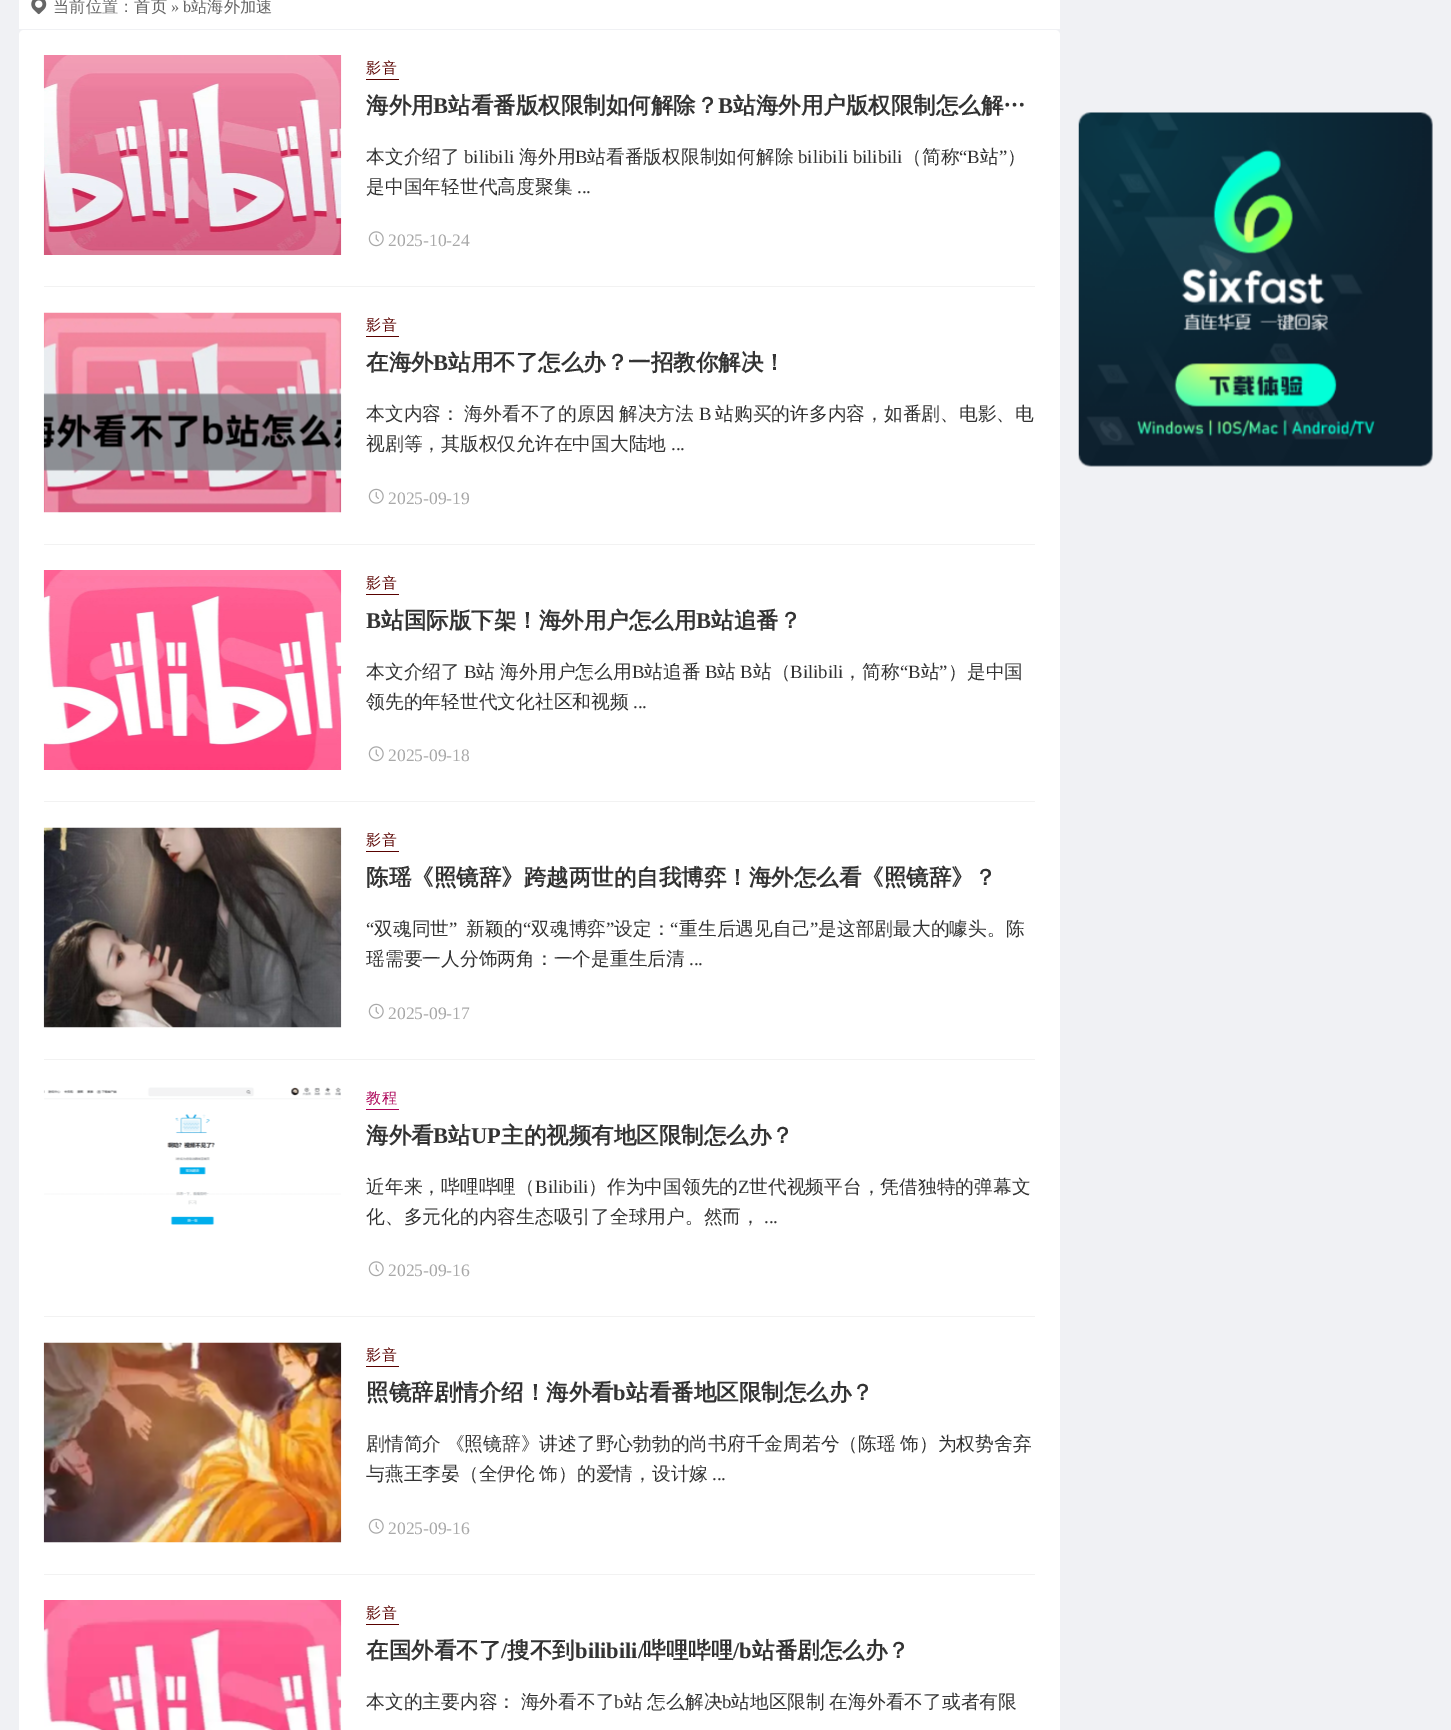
%!PS
<< /PageSize [1451 1730] >> setpagedevice
/m/moveto load def
/f/fill load def
/C { dup -16 bitshift 255 div exch dup -8 bitshift 255 and 255 div exch 255 and 255 div setrgbcolor } def
/F { [ exch dup neg 0 0 3 -1 roll 0 0 ] selectfont } def
/T { moveto show } def
/R { rectfill } def
/Q { 5 dict begin { /r /h /w /y /x } { exch def } forall
  x r add y moveto x w add y 2 copy h add r arct x w add y h add x 1 index r arct
  x y h add x y r arct x y 2 copy exch w add exch r arct closepath end } def
/I { 5 dict begin { /h /w /y /x /name } { exch def } forall
  gsave x y translate w h scale
  w h 8 [w 0 0 h 0 0] name (r) file false 3 colorimage grestore end } def
0 1730 translate 1 -1 scale
4 setmiterlimit
16#F0F1F4 C
0 0 1451 1730 R
16#FFFFFF C
19 0 1041 29 R
(1.rgb) 31 0 16 15 I
/WenQuanYiZenHei-Medium 16.25 F
16#666666 C
(当前位置：首页) 53 12 T
/LiberationSerif-Regular 16.25 F
(» b) 171 12 T
/WenQuanYiZenHei-Medium 16.25 F
(站海外加速) 191 12 T
16#FFFFFF C
19 30 1041 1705 5 Q f
16#F2F2F2 C
44 286 991 1 R
(2.rgb) 43 55 299 200 I
16#590200 C
366 79 33 1 R
/WenQuanYiZenHei-Medium 15 F
366 73 m 1 0 (影音) ashow
/WenQuanYiZenHei-Bold 22.5 F
16#333333 C
(海外用) 366 113 T
/LiberationSerif-Bold 22.5 F
(B) 433 113 T
/WenQuanYiZenHei-Bold 22.5 F
(站看番版权限制如何解除？) 448 113 T
/LiberationSerif-Bold 22.5 F
(B) 718 113 T
/WenQuanYiZenHei-Bold 22.5 F
(站海外用户版权限制怎么解…) 733 113 T
/WenQuanYiZenHei-Medium 18.75 F
(本文介绍了) 366 163 T
/LiberationSerif-Regular 18.75 F
(bilibili) 464 163 T
/WenQuanYiZenHei-Medium 18.75 F
(海外用) 519 163 T
/LiberationSerif-Regular 18.75 F
(B) 575 163 T
/WenQuanYiZenHei-Medium 18.75 F
(站看番版权限制如何解除) 587 163 T
/LiberationSerif-Regular 18.75 F
(bilibili bilibili) 798 163 T
/WenQuanYiZenHei-Medium 18.75 F
(（简称) 903 163 T
/LiberationSerif-Regular 18.75 F
(“B) 959 163 T
/WenQuanYiZenHei-Medium 18.75 F
(站) 980 163 T
/LiberationSerif-Regular 18.75 F
(”) 999 163 T
/WenQuanYiZenHei-Medium 18.75 F
(）) 1007 163 T
(是中国年轻世代高度聚集) 366 193 T
/LiberationSerif-Regular 18.75 F
(...) 577 193 T
(3.rgb) 368 231 16 16 I
/LiberationSerif-Regular 17.5 F
16#A8A8A8 C
(2025-10-24) 388 246 T
16#F2F2F2 C
44 544 991 1 R
(4.rgb) 43 312 299 201 I
16#590200 C
366 336 33 1 R
/WenQuanYiZenHei-Medium 15 F
366 330 m 1 0 (影音) ashow
/WenQuanYiZenHei-Bold 22.5 F
16#333333 C
(在海外) 366 370 T
/LiberationSerif-Bold 22.5 F
(B) 433 370 T
/WenQuanYiZenHei-Bold 22.5 F
(站用不了怎么办？一招教你解决！) 448 370 T
/WenQuanYiZenHei-Medium 18.75 F
366 420 m -1 0 32 (本文内容： 海外看不了的原因 解决方法) widthshow
/LiberationSerif-Regular 18.75 F
(B) 699 420 T
/WenQuanYiZenHei-Medium 18.75 F
(站购买的许多内容，如番剧、电影、电) 715 420 T
(视剧等，其版权仅允许在中国大陆地) 366 450 T
/LiberationSerif-Regular 18.75 F
(...) 671 450 T
(5.rgb) 368 488 16 16 I
/LiberationSerif-Regular 17.5 F
16#A8A8A8 C
(2025-09-19) 388 504 T
16#F2F2F2 C
44 801 991 1 R
(6.rgb) 43 570 299 200 I
16#590200 C
366 594 33 1 R
/WenQuanYiZenHei-Medium 15 F
366 588 m 1 0 (影音) ashow
/LiberationSerif-Bold 22.5 F
16#333333 C
(B) 366 628 T
/WenQuanYiZenHei-Bold 22.5 F
(站国际版下架！海外用户怎么用) 381 628 T
/LiberationSerif-Bold 22.5 F
(B) 696 628 T
/WenQuanYiZenHei-Bold 22.5 F
(站追番？) 711 628 T
/WenQuanYiZenHei-Medium 18.75 F
(本文介绍了) 366 678 T
/LiberationSerif-Regular 18.75 F
(B) 464 678 T
/WenQuanYiZenHei-Medium 18.75 F
(站 海外用户怎么用) 476 678 T
/LiberationSerif-Regular 18.75 F
(B) 632 678 T
/WenQuanYiZenHei-Medium 18.75 F
(站追番) 644 678 T
/LiberationSerif-Regular 18.75 F
(B) 705 678 T
/WenQuanYiZenHei-Medium 18.75 F
(站) 717 678 T
/LiberationSerif-Regular 18.75 F
(B) 740 678 T
/WenQuanYiZenHei-Medium 18.75 F
(站（) 753 678 T
/LiberationSerif-Regular 18.75 F
(Bilibili) 790 678 T
/WenQuanYiZenHei-Medium 18.75 F
(，简称) 843 678 T
/LiberationSerif-Regular 18.75 F
(“B) 900 678 T
/WenQuanYiZenHei-Medium 18.75 F
(站) 921 678 T
/LiberationSerif-Regular 18.75 F
(”) 939 678 T
/WenQuanYiZenHei-Medium 18.75 F
(）是中国) 948 678 T
(领先的年轻世代文化社区和视频) 366 708 T
/LiberationSerif-Regular 18.75 F
(...) 633 708 T
(3.rgb) 368 746 16 16 I
/LiberationSerif-Regular 17.5 F
16#A8A8A8 C
(2025-09-18) 388 761 T
16#F2F2F2 C
44 1059 991 1 R
(7.rgb) 43 827 299 201 I
16#590200 C
366 851 33 1 R
/WenQuanYiZenHei-Medium 15 F
366 845 m 1 0 (影音) ashow
/WenQuanYiZenHei-Bold 22.5 F
16#333333 C
(陈瑶《照镜辞》跨越两世的自我博弈！海外怎么看《照镜辞》？) 366 885 T
/LiberationSerif-Regular 18.75 F
(“) 366 935 T
/WenQuanYiZenHei-Medium 18.75 F
(双魂同世) 374 935 T
/LiberationSerif-Regular 18.75 F
(”) 449 935 T
/WenQuanYiZenHei-Medium 18.75 F
(新颖的) 466 935 T
/LiberationSerif-Regular 18.75 F
(“) 523 935 T
/WenQuanYiZenHei-Medium 18.75 F
(双魂博弈) 531 935 T
/LiberationSerif-Regular 18.75 F
(”) 606 935 T
/WenQuanYiZenHei-Medium 18.75 F
(设定：) 614 935 T
/LiberationSerif-Regular 18.75 F
(“) 670 935 T
/WenQuanYiZenHei-Medium 18.75 F
(重生后遇见自己) 679 935 T
/LiberationSerif-Regular 18.75 F
(”) 810 935 T
/WenQuanYiZenHei-Medium 18.75 F
(是这部剧最大的噱头。陈) 818 935 T
(瑶需要一人分饰两角：一个是重生后清) 366 965 T
/LiberationSerif-Regular 18.75 F
(...) 689 965 T
(5.rgb) 368 1003 16 16 I
/LiberationSerif-Regular 17.5 F
16#A8A8A8 C
(2025-09-17) 388 1019 T
16#F2F2F2 C
44 1316 991 1 R
(8.rgb) 43 1087 298 138 I
16#AC0258 C
366 1109 33 1 R
/WenQuanYiZenHei-Medium 15 F
366 1103 m 1 0 (教程) ashow
/WenQuanYiZenHei-Bold 22.5 F
16#333333 C
(海外看) 366 1143 T
/LiberationSerif-Bold 22.5 F
(B) 433 1143 T
/WenQuanYiZenHei-Bold 22.5 F
(站) 448 1143 T
/LiberationSerif-Bold 22.5 F
(UP) 471 1143 T
/WenQuanYiZenHei-Bold 22.5 F
(主的视频有地区限制怎么办？) 501 1143 T
/WenQuanYiZenHei-Medium 18.75 F
(近年来，哔哩哔哩（) 366 1193 T
/LiberationSerif-Regular 18.75 F
(Bilibili) 535 1193 T
/WenQuanYiZenHei-Medium 18.75 F
(）作为中国领先的) 588 1193 T
/LiberationSerif-Regular 18.75 F
(Z) 738 1193 T
/WenQuanYiZenHei-Medium 18.75 F
(世代视频平台，凭借独特的弹幕文) 749 1193 T
(化、多元化的内容生态吸引了全球用户。然而，) 366 1223 T
/LiberationSerif-Regular 18.75 F
(...) 764 1223 T
(3.rgb) 368 1261 16 16 I
/LiberationSerif-Regular 17.5 F
16#A8A8A8 C
(2025-09-16) 388 1276 T
16#F2F2F2 C
44 1574 991 1 R
(9.rgb) 43 1342 299 201 I
16#590200 C
366 1366 33 1 R
/WenQuanYiZenHei-Medium 15 F
366 1360 m 1 0 (影音) ashow
/WenQuanYiZenHei-Bold 22.5 F
16#333333 C
(照镜辞剧情介绍！海外看) 366 1400 T
/LiberationSerif-Bold 22.5 F
(b) 613 1400 T
/WenQuanYiZenHei-Bold 22.5 F
(站看番地区限制怎么办？) 626 1400 T
/WenQuanYiZenHei-Medium 18.75 F
366 1450 m -1 0 32 (剧情简介 《照镜辞》讲述了野心勃勃的尚书府千金周若兮（陈瑶 饰）为权势舍弃) widthshow
366 1480 m -1 0 32 (与燕王李晏（全伊伦 饰）的爱情，设计嫁) widthshow
/LiberationSerif-Regular 18.75 F
(...) 712 1480 T
(5.rgb) 368 1518 16 16 I
/LiberationSerif-Regular 17.5 F
16#A8A8A8 C
(2025-09-16) 388 1534 T
(10.rgb) 43 1600 299 130 I
16#590200 C
366 1624 33 1 R
/WenQuanYiZenHei-Medium 15 F
366 1618 m 1 0 (影音) ashow
/WenQuanYiZenHei-Bold 22.5 F
16#333333 C
(在国外看不了) 366 1658 T
/LiberationSerif-Bold 22.5 F
(/) 501 1658 T
/WenQuanYiZenHei-Bold 22.5 F
(搜不到) 507 1658 T
/LiberationSerif-Bold 22.5 F
(bilibili/) 575 1658 T
/WenQuanYiZenHei-Bold 22.5 F
(哔哩哔哩) 643 1658 T
/LiberationSerif-Bold 22.5 F
(/b) 733 1658 T
/WenQuanYiZenHei-Bold 22.5 F
(站番剧怎么办？) 752 1658 T
/WenQuanYiZenHei-Medium 18.75 F
366 1708 m -1 0 32 (本文的主要内容： 海外看不了) widthshow
/LiberationSerif-Regular 18.75 F
(b) 614 1708 T
/WenQuanYiZenHei-Medium 18.75 F
624 1708 m -1 0 32 (站 怎么解决) widthshow
/LiberationSerif-Regular 18.75 F
(b) 722 1708 T
/WenQuanYiZenHei-Medium 18.75 F
731 1708 m -1 0 32 (站地区限制 在海外看不了或者有限) widthshow
(11.rgb) 1078 112 355 355 I
showpage
